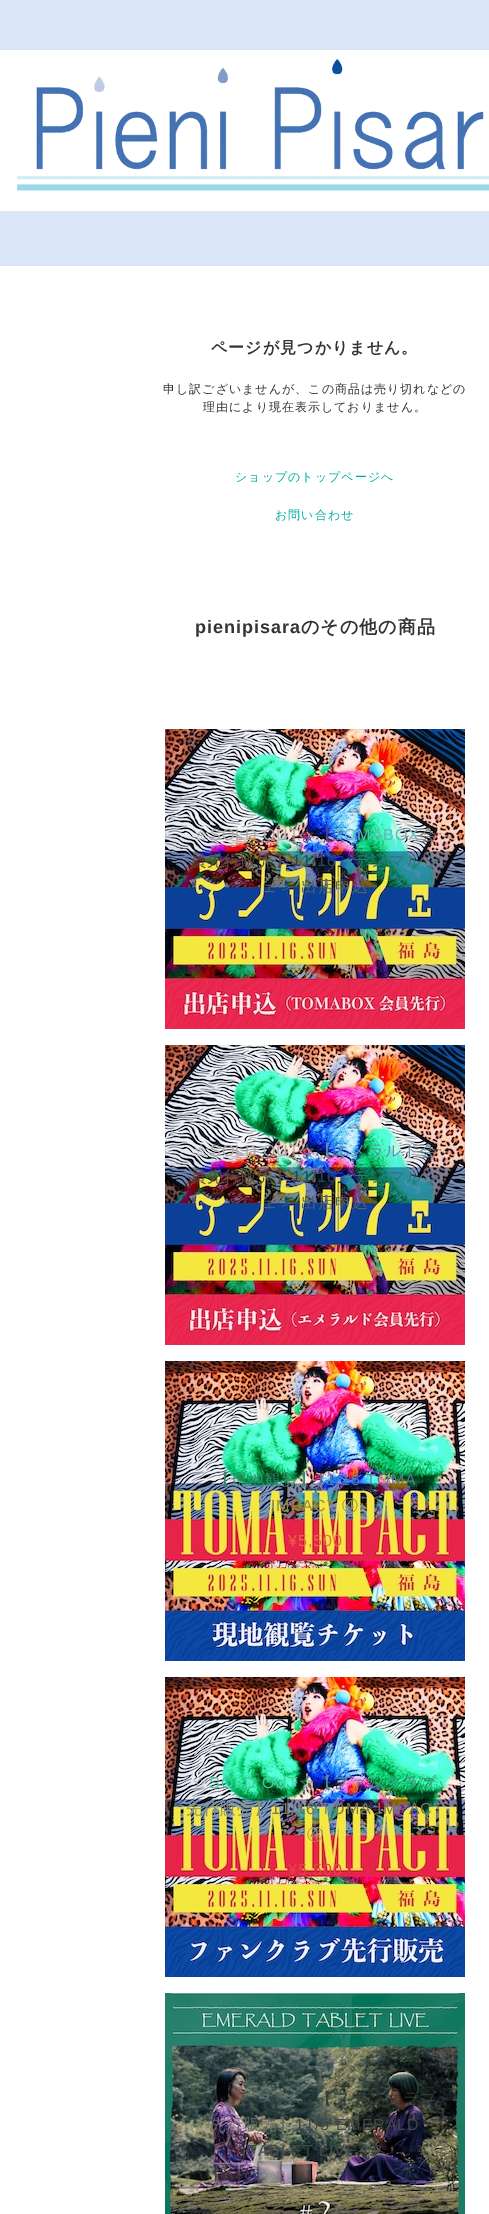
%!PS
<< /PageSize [489 2214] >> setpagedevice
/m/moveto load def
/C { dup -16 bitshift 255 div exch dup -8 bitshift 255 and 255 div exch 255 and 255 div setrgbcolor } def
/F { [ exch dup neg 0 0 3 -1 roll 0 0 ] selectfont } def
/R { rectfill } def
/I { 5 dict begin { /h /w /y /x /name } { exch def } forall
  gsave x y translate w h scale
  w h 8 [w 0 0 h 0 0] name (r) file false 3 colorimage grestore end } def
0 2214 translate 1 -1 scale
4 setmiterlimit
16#DAE6F7 C
0 0 489 2214 R
(1.rgb) 0 50 489 161 I
16#FFFFFF C
0 266 489 1948 R
/WenQuanYiZenHei-Bold 16 F
16#333333 C
211 353 m 1 0 (ページが見つかりません。) ashow
/WenQuanYiZenHei-Medium 12 F
163 393 m 1 0 (申し訳ございませんが、この商品は売り切れなどの) ashow
203 411 m 1 0 (理由により現在表示しておりません。) ashow
16#00AE9F C
235 481 m 1 0 (ショップのトップページへ) ashow
275 519 m 1 0 (お問い合わせ) ashow
/LiberationSans-Bold 18 F
16#333333 C
195 633 m 1 0 (pienipisara) ashow
/WenQuanYiZenHei-Bold 18 F
301 633 m 1 0 (のその他の商品) ashow
(2.rgb) 165 729 300 300 I
/WenQuanYiZenHei-Medium 16 F
16#B4B6BD C
193 840 m 1 0 (☆) ashow
/LiberationSans-Regular 16 F
16#AFA8A8 C
210 840 m 1 0 (SOLD OUT) ashow
/WenQuanYiZenHei-Medium 16 F
16#524388 C
299 840 m 1 0 (☆【) ashow
/LiberationSans-Regular 16 F
16#63B9B6 C
333 840 m 1 0 (TOMABOX) ashow
/WenQuanYiZenHei-Medium 16 F
16#7A7377 C
420 840 m 1 0 (会) ashow
16#594B3D C
190 866 m 1 0 (員先行販売】) ashow
/LiberationSans-Regular 16 F
16#2C445D C
292 866 m 1 0 (11/16) ashow
/WenQuanYiZenHei-Medium 16 F
16#31757B C
337 866 m 1 0 (＜テンマルシ) ashow
16#546169 C
261 892 m 1 0 (ェ＞ 出店申込) ashow
(3.rgb) 165 1045 300 300 I
16#B4B6BD C
193 1156 m 1 0 (☆) ashow
/LiberationSans-Regular 16 F
16#AFA8A8 C
210 1156 m 1 0 (SOLD OUT) ashow
/WenQuanYiZenHei-Medium 16 F
16#648EA1 C
299 1156 m 1 0 (☆【エメラルド会) ashow
16#594B3D C
190 1182 m 1 0 (員先行販売】) ashow
/LiberationSans-Regular 16 F
16#2C445D C
292 1182 m 1 0 (11/16) ashow
/WenQuanYiZenHei-Medium 16 F
16#31757B C
337 1182 m 1 0 (＜テンマルシ) ashow
16#546169 C
261 1208 m 1 0 (ェ＞ 出店申込) ashow
(4.rgb) 165 1361 300 300 I
16#378969 C
214 1485 m 1 0 (【現地観覧】) ashow
/LiberationSans-Regular 16 F
16#5C778F C
316 1485 m 1 0 (11/16 TOMA) ashow
16#918D4E C
271 1511 m 1 0 (IMPACT) ashow
/WenQuanYiZenHei-Medium 16 F
342 1511 m 1 0 (④) ashow
/LiberationSans-Regular 16 F
16#EA6745 C
288 1546 m 1 0 (¥5,500) ashow
(5.rgb) 165 1677 300 300 I
/WenQuanYiZenHei-Medium 16 F
16#B9BDC6 C
192 1788 m 1 0 (☆) ashow
/LiberationSans-Regular 16 F
16#45CA99 C
209 1788 m 1 0 (SOLD OUT) ashow
/WenQuanYiZenHei-Medium 16 F
16#4E918B C
299 1788 m 1 0 (☆【ファンクラブ) ashow
16#879276 C
186 1814 m 1 0 (先行販売】) ashow
/LiberationSans-Regular 16 F
16#78785B C
271 1814 m 1 0 (11/16 TOMA IMPACT) ashow
/WenQuanYiZenHei-Medium 16 F
16#B88556 C
307 1840 m 1 0 (④) ashow
/LiberationSans-Regular 16 F
16#E64548 C
288 1875 m 1 0 (¥5,500) ashow
(6.rgb) 165 1993 300 221 I
/WenQuanYiZenHei-Medium 16 F
16#373D36 C
299 2104 m 1 0 (☆【ファンクラブ) ashow
16#6C6669 C
210 2130 m 1 0 (先行販売】) ashow
/LiberationSans-Regular 16 F
16#434846 C
295 2130 m 1 0 (11/5 EMERALD) ashow
247 2156 m 1 0 (TABLET LIVE #2) ashow
showpage
